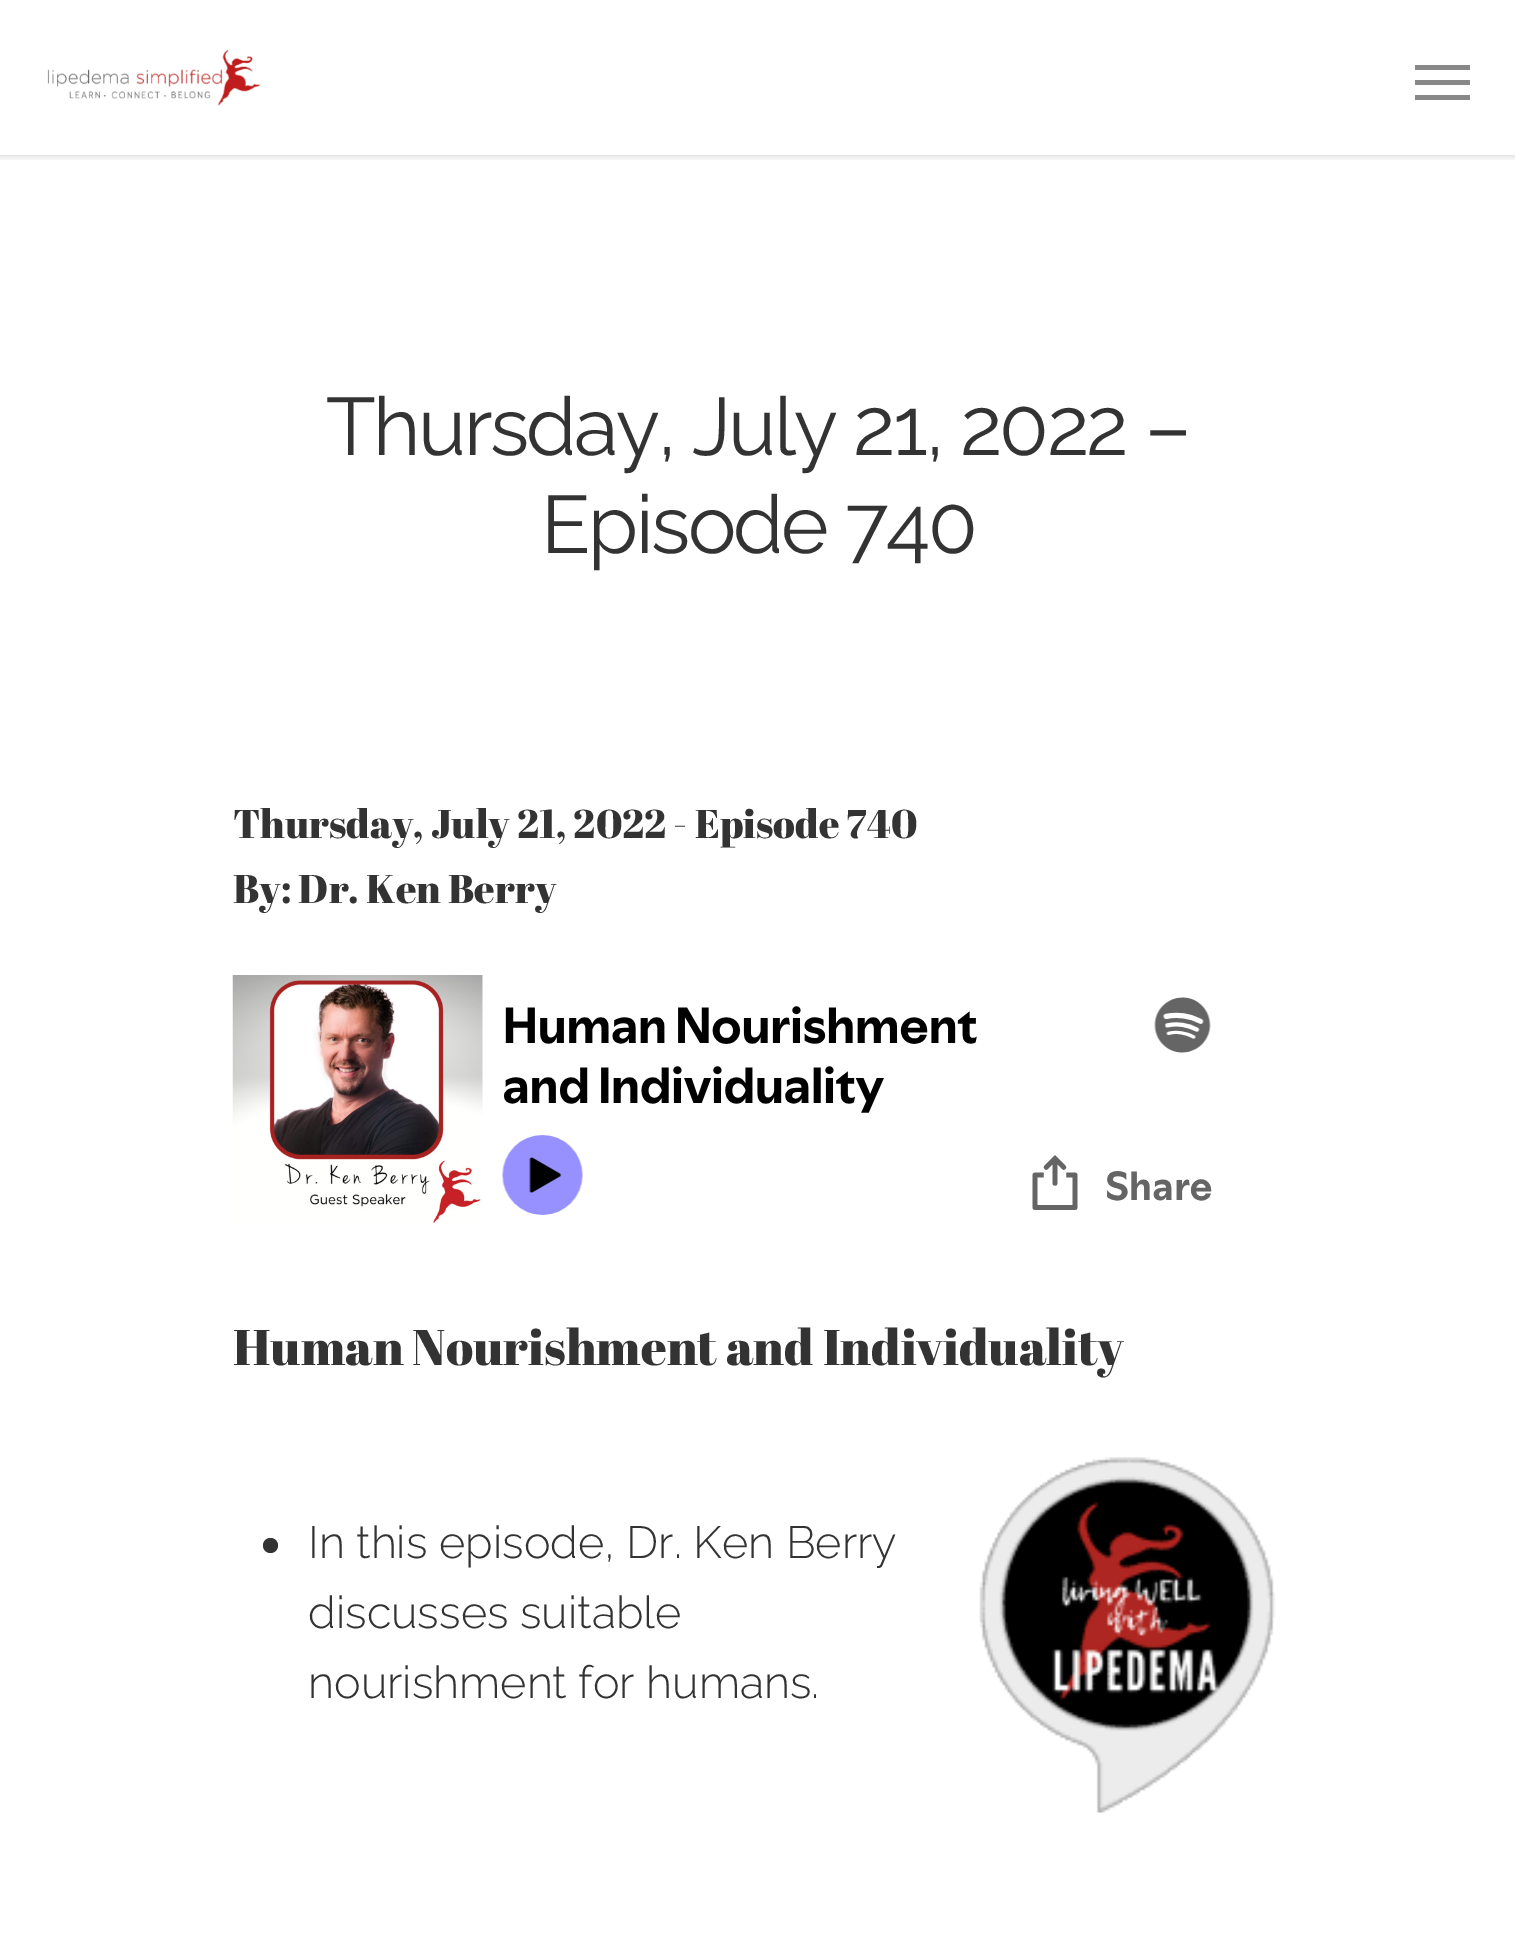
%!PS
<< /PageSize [1515 1945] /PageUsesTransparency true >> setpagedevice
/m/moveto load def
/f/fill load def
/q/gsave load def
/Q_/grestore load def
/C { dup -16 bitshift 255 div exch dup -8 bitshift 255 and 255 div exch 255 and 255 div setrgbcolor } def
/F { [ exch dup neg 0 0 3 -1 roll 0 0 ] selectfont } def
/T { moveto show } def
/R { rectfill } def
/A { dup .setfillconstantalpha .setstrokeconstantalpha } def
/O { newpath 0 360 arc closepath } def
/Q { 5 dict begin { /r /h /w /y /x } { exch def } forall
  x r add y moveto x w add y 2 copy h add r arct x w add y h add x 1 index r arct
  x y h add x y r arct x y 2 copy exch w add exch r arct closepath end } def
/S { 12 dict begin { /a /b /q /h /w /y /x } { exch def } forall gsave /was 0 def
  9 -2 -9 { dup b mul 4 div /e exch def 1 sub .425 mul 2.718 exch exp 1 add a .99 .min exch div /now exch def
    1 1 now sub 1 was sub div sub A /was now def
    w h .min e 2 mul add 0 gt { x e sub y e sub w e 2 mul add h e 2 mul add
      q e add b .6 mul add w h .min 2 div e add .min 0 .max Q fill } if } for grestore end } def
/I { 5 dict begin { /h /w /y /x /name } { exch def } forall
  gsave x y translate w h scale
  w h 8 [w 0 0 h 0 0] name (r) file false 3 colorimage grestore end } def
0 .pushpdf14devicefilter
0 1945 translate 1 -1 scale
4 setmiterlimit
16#FFFFFF C
0 0 1515 1945 R
q
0 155 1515 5 rectclip
16#000000 C
0 0 1515 155 0 4 .22 S
Q_
(1.rgb) 47 49 214 57 I
16#888888 C
1415 65 55 5 R
1415 95 55 5 R
1415 80 55 5 R
/Raleway-Regular 81.25 F
16#333333 C
326 455 m -2.5 0 (Thursday, July 21, 2022 –) ashow
541 553 m -2.5 0 (Episode 740) ashow
/AbrilFatface-Regular 40 F
(Thursday, July 21, 2022 - Episode 740) 233 838 T
(By: Dr. Ken Berry) 233 903 T
(2.rgb) 232 975 980 250 I
/AbrilFatface-Regular 50 F
(Human Nourishment and Individuality) 233 1365 T
270.5 1545.5 7.5 O f
/Raleway-Light 45 F
(In this episode, Dr. Ken Berry) 308 1558 T
(discusses suitable) 308 1628 T
(nourishment for humans.) 308 1698 T
(3.rgb) 979 1457 297 356 I
.poppdf14devicefilter showpage
